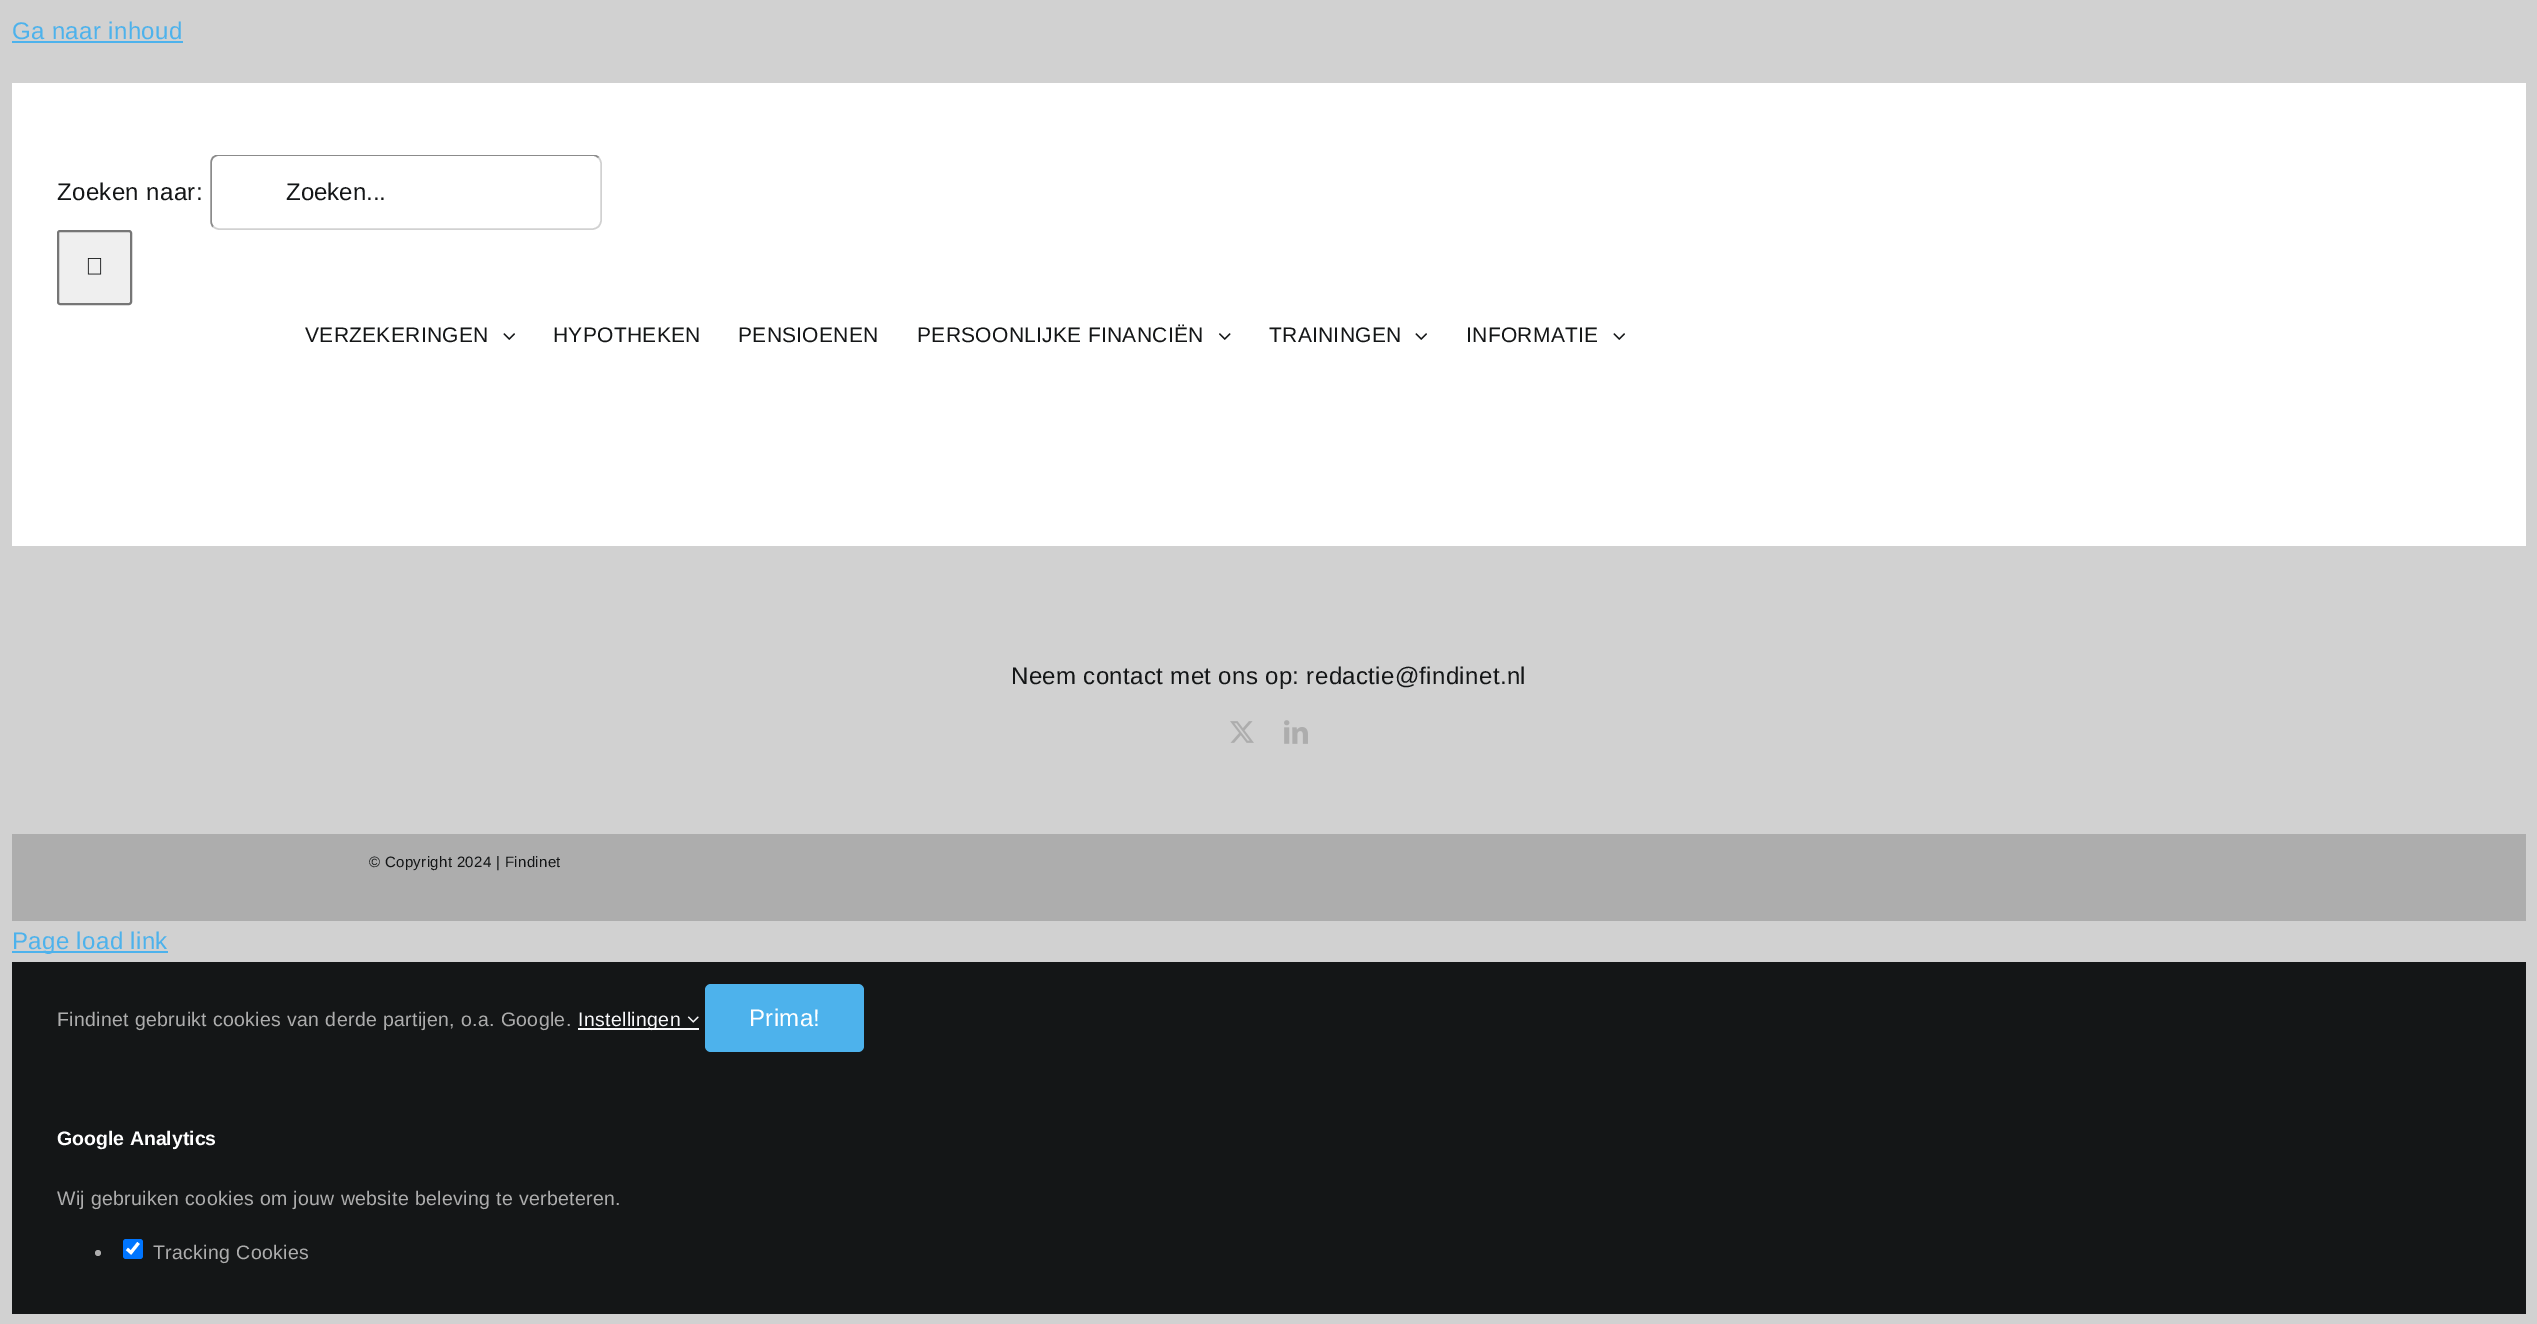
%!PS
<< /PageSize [2537 1324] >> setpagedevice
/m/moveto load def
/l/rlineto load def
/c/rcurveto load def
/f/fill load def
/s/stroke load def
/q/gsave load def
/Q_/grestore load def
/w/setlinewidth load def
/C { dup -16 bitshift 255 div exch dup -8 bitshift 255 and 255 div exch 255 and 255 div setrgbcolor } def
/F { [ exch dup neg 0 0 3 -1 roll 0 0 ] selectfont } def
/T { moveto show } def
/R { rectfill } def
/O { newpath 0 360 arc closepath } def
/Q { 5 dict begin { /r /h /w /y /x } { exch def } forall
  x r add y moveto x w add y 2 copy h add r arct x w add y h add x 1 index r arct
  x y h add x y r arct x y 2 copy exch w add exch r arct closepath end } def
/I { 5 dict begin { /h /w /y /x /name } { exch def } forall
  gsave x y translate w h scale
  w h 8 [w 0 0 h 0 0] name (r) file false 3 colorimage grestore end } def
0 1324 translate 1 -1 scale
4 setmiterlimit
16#D1D1D1 C
0 0 2537 1324 R
/LiberationSans-Regular 24 F
16#4DB2EC C
12 39 m .35 0 (Ga naar inhoud) ashow
12 41 171 2 R
16#FFFFFF C
12 83 2514 463 R
16#141617 C
57 200 m .35 0 (Zoeken naar:) ashow
16#D1D1D1 C
1.5 w
598.5 157.5 m 1.5 1.5 2.5 4 2.5 6 c 0 57 l 0 2 -1 4.5 -2.5 6 c -1.5 1.5 -4 2.5 -6 2.5 c -373.5 0 l -2 0 -4.5 -1 -6 -2.5 c s
q
57 155 1800 210 rectclip
16#8B8B8B C
213 226.5 m -1.5 -1.5 -2 -4 -2 -6 c 0 -57 l 0 -2 .5 -4.5 2 -6 c 1.5 -1.5 4 -2.5 6 -2.5 c 373.5 0 l 2 0 4.5 1 6 2.5 c s
Q_
16#141617 C
(Zoeken...) 286 200 T
16#EFEFEF C
58 231 73 73 2 Q q f Q_
16#767676 C
2 w
s
(1.rgb) 87 258 15 17 I
/LiberationSans-Regular 21 F
16#141617 C
305 342 m .3 0 (VERZEKERINGEN) ashow
(2.rgb) 503 333 12 7 I
553 342 m .3 0 (HYPOTHEKEN) ashow
738 342 m .3 0 (PENSIOENEN) ashow
917 342 m .3 0 (PERSOONLIJKE FINANCIËN) ashow
(3.rgb) 1219 333 12 7 I
1269 342 m .3 0 (TRAININGEN) ashow
(2.rgb) 1415 333 12 7 I
1466 342 m .3 0 (INFORMATIE) ashow
(2.rgb) 1613 333 12 7 I
/LiberationSans-Regular 24 F
1011 684 m .35 0 (Neem contact met ons op: redactie@findinet.nl) ashow
(4.rgb) 1230 721 24 22 I
(5.rgb) 1284 720 24 24 I
16#ADADAD C
12 834 2514 87 R
/LiberationSans-Regular 15 F
16#141617 C
369 867 m .35 0 (© Copyright 2024 | Findinet) ashow
16#4DB2EC C
12 951 156 2 R
/LiberationSans-Regular 24 F
12 949 m .35 0 (Page load link) ashow
16#141617 C
12 962 2514 352 R
/LiberationSans-Regular 19.5 F
16#ADADAD C
57 1026 m .35 0 (Findinet gebruikt cookies van derde partijen, o.a. Google.) ashow
16#F9F9FB C
578 1028 121 2 R
578 1026 m .35 0 (Instellingen) ashow
(6.rgb) 687 1016 12 7 I
16#4DB2EC C
705 984 159 68 6 Q f
/LiberationSans-Regular 24 F
16#FFFFFF C
749 1026 m .35 0 (Prima!) ashow
/LiberationSans-Bold 19.5 F
(Google Analytics) 57 1145 T
/LiberationSans-Regular 19.5 F
16#ADADAD C
57 1205 m .35 0 (Wij gebruiken cookies om jouw website beleving te verbeteren.) ashow
98 1253 3 O f
16#0075FF C
123 1239 20 20 3 Q f
16#FFFFFF C
3.1 w
127 1249 m 4 3.5 l 7.5 -9.5 l s
16#ADADAD C
153 1259 m .35 0 (Tracking Cookies) ashow
showpage
